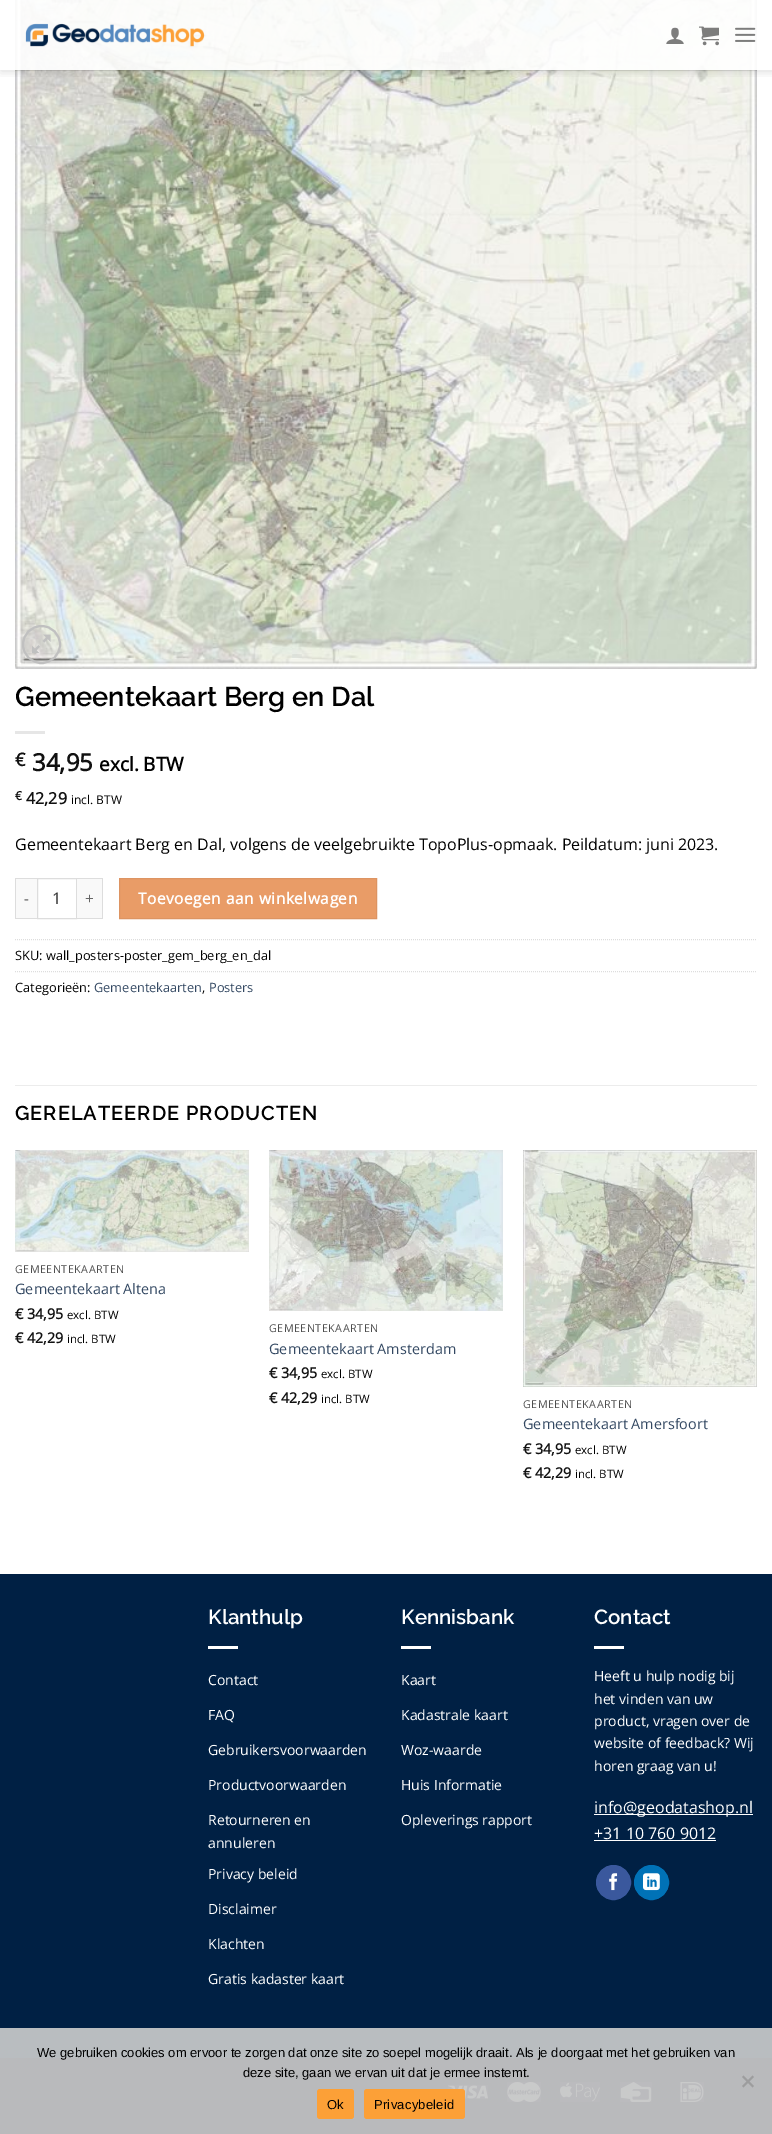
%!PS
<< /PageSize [772 2134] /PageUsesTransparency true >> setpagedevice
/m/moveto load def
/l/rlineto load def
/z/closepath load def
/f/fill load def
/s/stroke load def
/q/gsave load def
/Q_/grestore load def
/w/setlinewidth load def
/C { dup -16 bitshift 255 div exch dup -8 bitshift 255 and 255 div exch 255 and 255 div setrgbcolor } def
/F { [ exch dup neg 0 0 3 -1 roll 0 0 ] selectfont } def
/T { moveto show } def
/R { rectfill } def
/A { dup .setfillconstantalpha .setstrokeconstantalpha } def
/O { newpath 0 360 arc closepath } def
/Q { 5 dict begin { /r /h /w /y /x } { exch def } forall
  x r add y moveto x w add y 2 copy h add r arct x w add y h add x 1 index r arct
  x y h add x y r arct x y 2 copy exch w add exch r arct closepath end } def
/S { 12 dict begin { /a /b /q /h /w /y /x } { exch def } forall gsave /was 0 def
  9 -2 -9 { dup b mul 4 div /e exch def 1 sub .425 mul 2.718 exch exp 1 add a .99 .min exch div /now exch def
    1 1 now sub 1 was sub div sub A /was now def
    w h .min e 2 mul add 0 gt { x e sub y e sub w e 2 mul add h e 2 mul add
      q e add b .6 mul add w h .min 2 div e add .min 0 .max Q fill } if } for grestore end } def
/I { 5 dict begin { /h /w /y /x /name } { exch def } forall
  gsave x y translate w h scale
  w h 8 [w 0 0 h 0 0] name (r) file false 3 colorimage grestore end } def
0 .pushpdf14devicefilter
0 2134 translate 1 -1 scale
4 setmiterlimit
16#FFFFFF C
0 0 772 2134 R
(5.rgb) 15 0 742 669 I
q
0 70 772 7 rectclip
16#000000 C
1 1 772 70 0 5 .15 S
Q_
0.9 A
15 0 742 70 R
1 A
(1.rgb) 25 23 180 24 I
(2.rgb) 666 27 18 17 I
(3.rgb) 699 26 20 20 I
(4.rgb) 735 27 21 15 I
0.1 A
16#000000 C
15 70 742 1 R
1 A
16#C0C0C0 C
2 w
41.5 644.5 18.5 O s
(6.rgb) 32 634 19 20 I
/Raleway-SemiBold 27.25 F
16#000000 C
(Gemeentekaart Berg en Dal) 15 706 T
16#E6E6E6 C
15 731 30 3 R
/OpenSans-Bold 18 F
16#111111 C
(€) 15 766 T
/OpenSans-Bold 24 F
(34,95) 32 771 T
/OpenSans-Bold 19 F
16#000000 C
(excl. BTW) 99 771 T
/OpenSans-Bold 12 F
16#111111 C
(€) 15 800 T
/OpenSans-Bold 16 F
(42,29) 26 804 T
/OpenSans-Regular 12 F
16#000000 C
(incl. BTW) 71 804 T
/OpenSans-Regular 16 F
(Gemeentekaart Berg en Dal, volgens de veelgebruikte TopoPlus-opmaak. Peildatum: juni 2023.) 15 850 T
16#F9F9F9 C
16 879 21 39 R
16#DDDDDD C
15 878 22 1 R
15 918 22 1 R
15 878 1 41 R
/OpenSans-Regular 15.5 F
16#666666 C
24 904 m .5 0 (-) ashow
16#DDDDDD C
1 w
37.5 878.5 39 40 rectstroke
/OpenSans-Regular 16 F
16#333333 C
(1) 52 904 T
16#F9F9F9 C
77 879 25 39 R
16#DDDDDD C
77 878 26 1 R
102 878 1 41 R
77 918 26 1 R
/OpenSans-Regular 15.5 F
16#666666 C
85 904 m .5 0 (+) ashow
16#E99C67 C
119.5 878.5 m 257 0 l 0 40 l -257 0 l z q f Q_
16#DD9462 C
s
/OpenSans-Bold 15.5 F
16#FFFFFF C
138 904 m .5 0 (Toevoegen aan winkelwagen) ashow
16#DDDDDD C
[1 1] 0 setdash
15 939.5 m 742 0 l s
/OpenSans-Regular 12.8 F
16#000000 C
(SKU: wall_posters-poster_gem_berg_en_dal) 15 960 T
16#DDDDDD C
15 971.5 m 742 0 l s
16#000000 C
(Categorieën:) 15 992 T
16#334862 C
(Gemeentekaarten) 94 992 T
16#000000 C
(,) 202 992 T
16#334862 C
(Posters) 209 992 T
16#ECECEC C
15 1085 742 1 R
/Raleway-SemiBold 20 F
16#000000 C
15 1120 m 1 0 (GERELATEERDE PRODUCTEN) ashow
(7.rgb) 15 1150 234 102 I
/OpenSans-Regular 10.75 F
16#4D4D4D C
15 1273 m .5 0 (GEMEENTEKAARTEN) ashow
/OpenSans-Regular 14.4 F
16#334862 C
(Gemeentekaart Altena) 15 1294 T
/OpenSans-Bold 14.4 F
16#111111 C
(€ 34,95) 15 1319 T
/OpenSans-Regular 11.5 F
16#000000 C
(excl. BTW) 67 1319 T
/OpenSans-Bold 14.4 F
16#111111 C
(€ 42,29) 15 1343 T
/OpenSans-Regular 11.5 F
16#000000 C
(incl. BTW) 67 1343 T
(8.rgb) 269 1150 234 161 I
/OpenSans-Regular 10.75 F
16#4D4D4D C
269 1332 m .5 0 (GEMEENTEKAARTEN) ashow
/OpenSans-Regular 14.4 F
16#334862 C
(Gemeentekaart Amsterdam) 269 1354 T
/OpenSans-Bold 14.4 F
16#111111 C
(€ 34,95) 269 1378 T
/OpenSans-Regular 11.5 F
16#000000 C
(excl. BTW) 321 1378 T
/OpenSans-Bold 14.4 F
16#111111 C
(€ 42,29) 269 1403 T
/OpenSans-Regular 11.5 F
16#000000 C
(incl. BTW) 321 1403 T
(9.rgb) 523 1150 234 237 I
/OpenSans-Regular 10.75 F
16#4D4D4D C
523 1408 m .5 0 (GEMEENTEKAARTEN) ashow
/OpenSans-Regular 14.4 F
16#334862 C
(Gemeentekaart Amersfoort) 523 1429 T
/OpenSans-Bold 14.4 F
16#111111 C
(€ 34,95) 523 1454 T
/OpenSans-Regular 11.5 F
16#000000 C
(excl. BTW) 575 1454 T
/OpenSans-Bold 14.4 F
16#111111 C
(€ 42,29) 523 1478 T
/OpenSans-Regular 11.5 F
16#000000 C
(incl. BTW) 575 1478 T
16#002044 C
0 1574 772 454 R
16#B9BDC0 C
0 2028 772 30 R
/Raleway-SemiBold 20.5 F
16#FFFFFF C
(Klanthulp) 208 1624 T
208 1646 30 3 R
/OpenSans-Regular 14 F
(Contact) 208 1685 T
(FAQ) 208 1720 T
(Gebruikersvoorwaarden) 208 1755 T
(Productvoorwaarden) 208 1790 T
(Retourneren en) 208 1825 T
(annuleren) 208 1848 T
(Privacy beleid) 208 1879 T
(Disclaimer) 208 1914 T
(Klachten) 208 1949 T
(Gratis kadaster kaart) 208 1984 T
/Raleway-SemiBold 20.5 F
(Kennisbank) 401 1624 T
401 1646 30 3 R
/OpenSans-Regular 14 F
(Kaart) 401 1685 T
(Kadastrale kaart) 401 1720 T
(Woz-waarde) 401 1755 T
(Huis Informatie) 401 1790 T
(Opleverings rapport) 401 1825 T
/Raleway-SemiBold 20.5 F
(Contact) 594 1624 T
594 1646 30 3 R
/OpenSans-Regular 14 F
(Heeft u hulp nodig bij) 594 1681 T
(het vinden van uw) 594 1704 T
(product, vragen over de) 594 1726 T
(website of feedback? Wij) 594 1748 T
(horen graag van u!) 594 1771 T
594 1814 159 1 R
/OpenSans-Regular 16 F
(info@geodatashop.nl) 594 1813 T
(+31 10 760 9012) 594 1839 T
594 1840 122 1 R
16#3A589D C
613.5 1882.5 17 O q f Q_
[] 0 setdash
s
(10.rgb) 609 1873 9 18 I
16#0072B7 C
651.5 1882.5 17 O q f Q_
s
(11.rgb) 643 1873 17 18 I
16#B9BABC C
0 2058 772 76 R
(12.rgb) 448 2085 40 14 I
(13.rgb) 507 2082 34 20 I
(14.rgb) 560 2082 40 20 I
(15.rgb) 620 2082 32 20 I
(16.rgb) 680 2082 24 20 I
/LiberationSans-Regular 13 F
16#000000 C
(We gebruiken cookies om ervoor te zorgen dat onze site zo soepel mogelijk draait. Als je doorgaat met het gebruiken van) 37 2057 T
(deze site, gaan we ervan uit dat je ermee instemt.) 243 2077 T
16#9D9D9E C
752.5 2075.5 m 1.5 1.5 l -10.5 10.5 l -1.5 -1.5 l z f
742 2077 m 1.5 -1.5 l 10.5 10.5 l -1.5 1.5 l z f
16#FCA037 C
317 2089 37 30 3 Q f
16#000000 C
327 2109 m .25 0 (Ok) ashow
16#FCA037 C
364 2089 101 30 3 Q f
16#000000 C
374 2109 m .25 0 (Privacybeleid) ashow
.poppdf14devicefilter showpage
